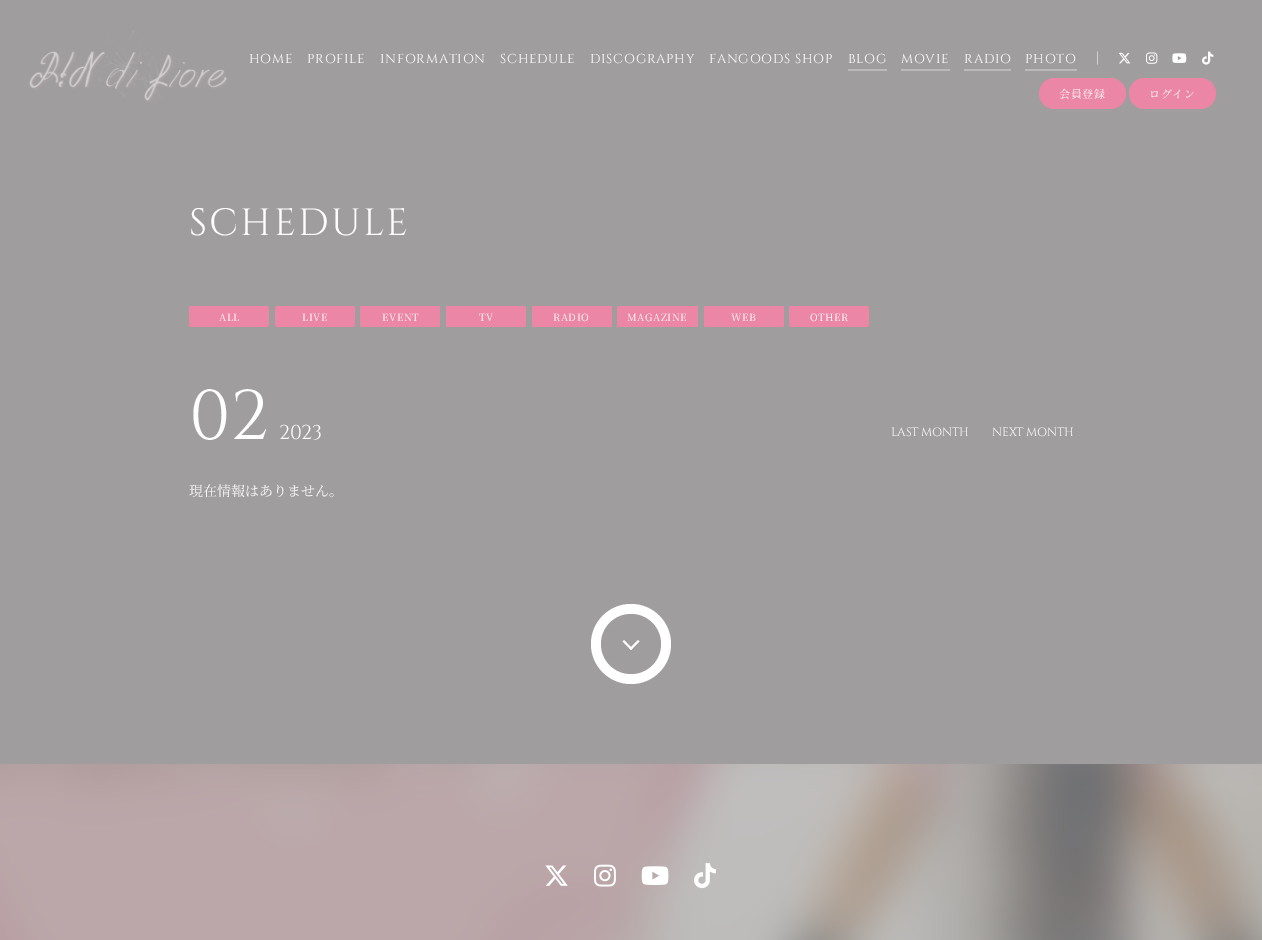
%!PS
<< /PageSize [1262 940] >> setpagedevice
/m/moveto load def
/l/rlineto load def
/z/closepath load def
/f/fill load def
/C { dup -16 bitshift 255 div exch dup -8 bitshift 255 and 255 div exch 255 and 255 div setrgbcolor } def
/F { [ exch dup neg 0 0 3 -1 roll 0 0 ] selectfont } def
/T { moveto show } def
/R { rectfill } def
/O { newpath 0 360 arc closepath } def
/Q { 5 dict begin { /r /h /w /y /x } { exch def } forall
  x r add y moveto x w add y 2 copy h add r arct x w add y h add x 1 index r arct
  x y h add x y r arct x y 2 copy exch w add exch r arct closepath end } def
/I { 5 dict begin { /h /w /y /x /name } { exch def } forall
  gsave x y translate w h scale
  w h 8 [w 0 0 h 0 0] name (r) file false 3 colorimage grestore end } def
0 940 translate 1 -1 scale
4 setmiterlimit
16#A09D9F C
0 0 1262 940 R
(1.rgb) 29 30 199 72 I
/Cinzel-Regular 13 F
16#FFFFFF C
249 63 m .75 0 (HOME) ashow
307 63 m .75 0 (PROFILE) ashow
380 63 m .75 0 (INFORMATION) ashow
500 63 m .75 0 (SCHEDULE) ashow
590 63 m .75 0 (DISCOGRAPHY) ashow
709 63 m .75 0 (FANGOODS SHOP) ashow
848 63 m .75 0 (BLOG) ashow
16#BDBABC C
848 69 39 2 R
16#FFFFFF C
901 63 m .75 0 (MOVIE) ashow
16#BDBABC C
901 69 49 2 R
16#FFFFFF C
964 63 m .75 0 (RADIO) ashow
16#BDBABC C
964 69 47 2 R
16#FFFFFF C
1025 63 m .75 0 (PHOTO) ashow
16#BDBABC C
1025 69 52 2 R
/NotoSerifJP-Regular 13 F
16#FFFFFF C
1091 63 m 1 0 (│) ashow
(2.rgb) 1119 52 12 12 I
(3.rgb) 1146 52 12 12 I
(4.rgb) 1172 53 15 10 I
(5.rgb) 1202 51 12 14 I
16#EC86A6 C
1039 78 87 31 15.5 Q f
/NotoSerifJP-Regular 11 F
16#FFFFFF C
1059 98 m .5 0 (会員登録) ashow
16#EC86A6 C
1129 78 87 31 15.5 Q f
16#FFFFFF C
1149 98 m .5 0 (ログイン) ashow
/Cinzel-Regular 38 F
189 235 m 2.25 0 (SCHEDULE) ashow
16#EC86A6 C
189 306 80 21 2 Q f
/NotoSerifJP-Regular 10 F
16#FFFFFF C
219 321 m .5 0 (ALL) ashow
16#EC86A6 C
275 306 80 21 2 Q f
16#FFFFFF C
302 321 m .5 0 (LIVE) ashow
16#EC86A6 C
360 306 80 21 2 Q f
16#FFFFFF C
382 321 m .5 0 (EVENT) ashow
16#EC86A6 C
446 306 80 21 2 Q f
16#FFFFFF C
479 321 m .5 0 (TV) ashow
16#EC86A6 C
532 306 80 21 2 Q f
16#FFFFFF C
553 321 m .5 0 (RADIO) ashow
16#EC86A6 C
617 306 81 21 2 Q f
16#FFFFFF C
627 321 m .5 0 (MAGAZINE) ashow
16#EC86A6 C
704 306 80 21 2 Q f
16#FFFFFF C
731 321 m .5 0 (WEB) ashow
16#EC86A6 C
789 306 80 21 2 Q f
16#FFFFFF C
810 321 m .5 0 (OTHER) ashow
/Cinzel-Regular 70 F
189 439 m -.25 0 (02) ashow
/Cinzel-Regular 20 F
279 439 m -.25 0 (2023) ashow
/Cinzel-Regular 12 F
891 436 m -.25 0 (LAST MONTH) ashow
992 436 m -.25 0 (NEXT MONTH) ashow
/NotoSerifJP-Regular 14 F
(現在情報はありません。) 189 496 T
631 644 40 O f
16#A09D9F C
631 644 30 O f
16#FFFFFF C
639.5 641.5 m -8.5 8.5 l -1.5 -1.5 l 8.5 -8.5 l z f
632.5 648.5 m -1.5 1.5 l -8.5 -8.5 l 1.5 -1.5 l z f
(6.rgb) 0 764 1262 176 I
(7.rgb) 545 865 23 21 I
(8.rgb) 594 864 22 23 I
(9.rgb) 641 866 28 19 I
(10.rgb) 694 863 22 26 I
showpage
